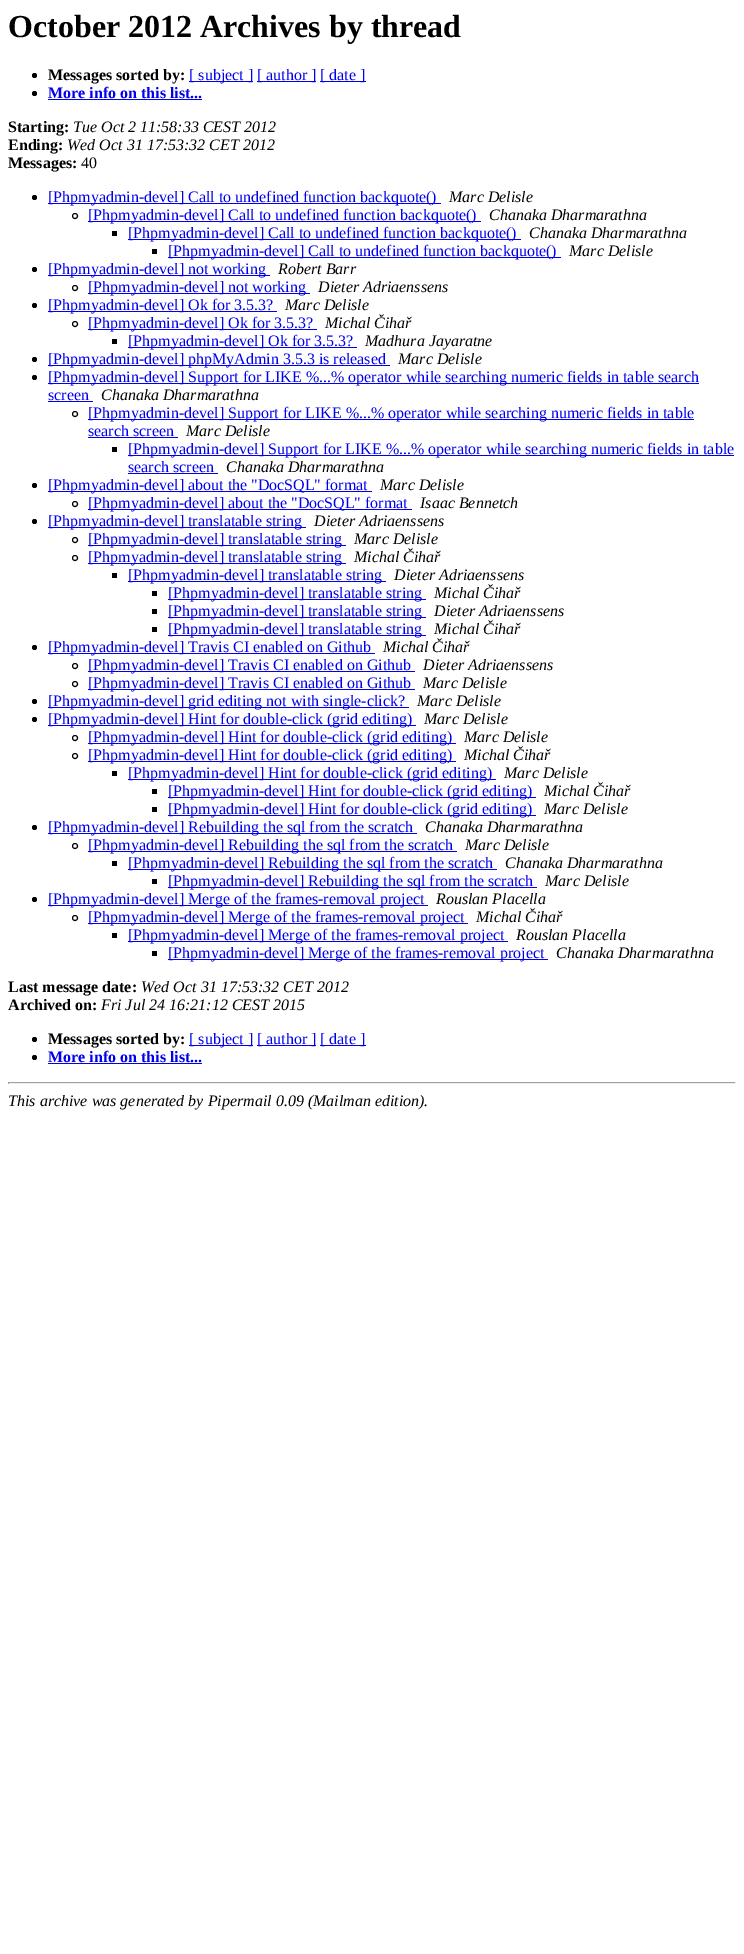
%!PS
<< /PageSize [744 1954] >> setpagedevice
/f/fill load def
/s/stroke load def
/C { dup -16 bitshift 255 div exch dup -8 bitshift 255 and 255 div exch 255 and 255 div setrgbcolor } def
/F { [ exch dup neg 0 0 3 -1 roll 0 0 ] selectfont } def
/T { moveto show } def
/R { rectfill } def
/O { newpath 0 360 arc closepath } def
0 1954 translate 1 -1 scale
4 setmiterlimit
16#FFFFFF C
0 0 744 1954 R
/LiberationSerif-Bold 32 F
16#000000 C
(October 2012 Archives by thread) 8 37 T
34.5 75.5 2.5 O f
/LiberationSerif-Bold 16 F
(Messages sorted by:) 48 80 T
16#0000EE C
189 81 64 1 R
/LiberationSerif-Regular 16 F
([ subject ]) 189 80 T
257 81 59 1 R
([ author ]) 257 80 T
320 81 46 1 R
([ date ]) 320 80 T
16#000000 C
34.5 93.5 2.5 O f
/LiberationSerif-Bold 16 F
16#0000EE C
(More info on this list...) 48 98 T
48 99 154 1 R
16#000000 C
(Starting:) 8 132 T
/LiberationSerif-Italic 16 F
(Tue Oct 2 11:58:33 CEST 2012) 73 132 T
/LiberationSerif-Bold 16 F
(Ending:) 8 150 T
/LiberationSerif-Italic 16 F
(Wed Oct 31 17:53:32 CET 2012) 67 150 T
/LiberationSerif-Bold 16 F
(Messages:) 8 168 T
/LiberationSerif-Regular 16 F
(40) 81 168 T
34.5 197.5 2.5 O f
16#0000EE C
48 203 393 1 R
([Phpmyadmin-devel] Call to undefined function backquote\(\)) 48 202 T
/LiberationSerif-Italic 16 F
16#000000 C
(Marc Delisle) 449 202 T
75 216 2.5 O s
16#0000EE C
88 221 393 1 R
/LiberationSerif-Regular 16 F
([Phpmyadmin-devel] Call to undefined function backquote\(\)) 88 220 T
/LiberationSerif-Italic 16 F
16#000000 C
(Chanaka Dharmarathna) 489 220 T
112 231 5 5 R
16#0000EE C
128 239 393 1 R
/LiberationSerif-Regular 16 F
([Phpmyadmin-devel] Call to undefined function backquote\(\)) 128 238 T
/LiberationSerif-Italic 16 F
16#000000 C
(Chanaka Dharmarathna) 529 238 T
152 249 5 5 R
16#0000EE C
168 257 393 1 R
/LiberationSerif-Regular 16 F
([Phpmyadmin-devel] Call to undefined function backquote\(\)) 168 256 T
/LiberationSerif-Italic 16 F
16#000000 C
(Marc Delisle) 569 256 T
34.5 269.5 2.5 O f
16#0000EE C
48 275 222 1 R
/LiberationSerif-Regular 16 F
([Phpmyadmin-devel] not working) 48 274 T
/LiberationSerif-Italic 16 F
16#000000 C
(Robert Barr) 278 274 T
75 288 2.5 O s
16#0000EE C
88 293 222 1 R
/LiberationSerif-Regular 16 F
([Phpmyadmin-devel] not working) 88 292 T
/LiberationSerif-Italic 16 F
16#000000 C
(Dieter Adriaenssens) 318 292 T
34.5 305.5 2.5 O f
16#0000EE C
48 311 229 1 R
/LiberationSerif-Regular 16 F
([Phpmyadmin-devel] Ok for 3.5.3?) 48 310 T
/LiberationSerif-Italic 16 F
16#000000 C
(Marc Delisle) 285 310 T
75 324 2.5 O s
16#0000EE C
88 329 229 1 R
/LiberationSerif-Regular 16 F
([Phpmyadmin-devel] Ok for 3.5.3?) 88 328 T
/LiberationSerif-Italic 16 F
16#000000 C
(Michal Čihař) 325 328 T
112 339 5 5 R
16#0000EE C
128 347 229 1 R
/LiberationSerif-Regular 16 F
([Phpmyadmin-devel] Ok for 3.5.3?) 128 346 T
/LiberationSerif-Italic 16 F
16#000000 C
(Madhura Jayaratne) 365 346 T
34.5 359.5 2.5 O f
16#0000EE C
48 365 342 1 R
/LiberationSerif-Regular 16 F
([Phpmyadmin-devel] phpMyAdmin 3.5.3 is released) 48 364 T
/LiberationSerif-Italic 16 F
16#000000 C
(Marc Delisle) 398 364 T
34.5 377.5 2.5 O f
16#0000EE C
48 383 651 1 R
/LiberationSerif-Regular 16 F
([Phpmyadmin-devel] Support for LIKE %...% operator while searching numeric fields in table search) 48 382 T
(screen) 48 400 T
48 401 45 1 R
/LiberationSerif-Italic 16 F
16#000000 C
(Chanaka Dharmarathna) 101 400 T
75 414 2.5 O s
16#0000EE C
88 419 606 1 R
/LiberationSerif-Regular 16 F
([Phpmyadmin-devel] Support for LIKE %...% operator while searching numeric fields in table) 88 418 T
(search screen) 88 436 T
88 437 90 1 R
/LiberationSerif-Italic 16 F
16#000000 C
(Marc Delisle) 186 436 T
112 447 5 5 R
16#0000EE C
128 455 606 1 R
/LiberationSerif-Regular 16 F
([Phpmyadmin-devel] Support for LIKE %...% operator while searching numeric fields in table) 128 454 T
(search screen) 128 472 T
128 473 90 1 R
/LiberationSerif-Italic 16 F
16#000000 C
(Chanaka Dharmarathna) 226 472 T
34.5 485.5 2.5 O f
16#0000EE C
48 491 324 1 R
/LiberationSerif-Regular 16 F
([Phpmyadmin-devel] about the "DocSQL" format) 48 490 T
/LiberationSerif-Italic 16 F
16#000000 C
(Marc Delisle) 380 490 T
75 504 2.5 O s
16#0000EE C
88 509 324 1 R
/LiberationSerif-Regular 16 F
([Phpmyadmin-devel] about the "DocSQL" format) 88 508 T
/LiberationSerif-Italic 16 F
16#000000 C
(Isaac Bennetch) 420 508 T
34.5 521.5 2.5 O f
16#0000EE C
48 527 258 1 R
/LiberationSerif-Regular 16 F
([Phpmyadmin-devel] translatable string) 48 526 T
/LiberationSerif-Italic 16 F
16#000000 C
(Dieter Adriaenssens) 314 526 T
75 540 2.5 O s
16#0000EE C
88 545 258 1 R
/LiberationSerif-Regular 16 F
([Phpmyadmin-devel] translatable string) 88 544 T
/LiberationSerif-Italic 16 F
16#000000 C
(Marc Delisle) 354 544 T
75 558 2.5 O s
16#0000EE C
88 563 258 1 R
/LiberationSerif-Regular 16 F
([Phpmyadmin-devel] translatable string) 88 562 T
/LiberationSerif-Italic 16 F
16#000000 C
(Michal Čihař) 354 562 T
112 573 5 5 R
16#0000EE C
128 581 258 1 R
/LiberationSerif-Regular 16 F
([Phpmyadmin-devel] translatable string) 128 580 T
/LiberationSerif-Italic 16 F
16#000000 C
(Dieter Adriaenssens) 394 580 T
152 591 5 5 R
16#0000EE C
168 599 258 1 R
/LiberationSerif-Regular 16 F
([Phpmyadmin-devel] translatable string) 168 598 T
/LiberationSerif-Italic 16 F
16#000000 C
(Michal Čihař) 434 598 T
152 609 5 5 R
16#0000EE C
168 617 258 1 R
/LiberationSerif-Regular 16 F
([Phpmyadmin-devel] translatable string) 168 616 T
/LiberationSerif-Italic 16 F
16#000000 C
(Dieter Adriaenssens) 434 616 T
152 627 5 5 R
16#0000EE C
168 635 258 1 R
/LiberationSerif-Regular 16 F
([Phpmyadmin-devel] translatable string) 168 634 T
/LiberationSerif-Italic 16 F
16#000000 C
(Michal Čihař) 434 634 T
34.5 647.5 2.5 O f
16#0000EE C
48 653 327 1 R
/LiberationSerif-Regular 16 F
([Phpmyadmin-devel] Travis CI enabled on Github) 48 652 T
/LiberationSerif-Italic 16 F
16#000000 C
(Michal Čihař) 383 652 T
75 666 2.5 O s
16#0000EE C
88 671 327 1 R
/LiberationSerif-Regular 16 F
([Phpmyadmin-devel] Travis CI enabled on Github) 88 670 T
/LiberationSerif-Italic 16 F
16#000000 C
(Dieter Adriaenssens) 423 670 T
75 684 2.5 O s
16#0000EE C
88 689 327 1 R
/LiberationSerif-Regular 16 F
([Phpmyadmin-devel] Travis CI enabled on Github) 88 688 T
/LiberationSerif-Italic 16 F
16#000000 C
(Marc Delisle) 423 688 T
34.5 701.5 2.5 O f
16#0000EE C
48 707 361 1 R
/LiberationSerif-Regular 16 F
([Phpmyadmin-devel] grid editing not with single-click?) 48 706 T
/LiberationSerif-Italic 16 F
16#000000 C
(Marc Delisle) 417 706 T
34.5 719.5 2.5 O f
16#0000EE C
48 725 368 1 R
/LiberationSerif-Regular 16 F
([Phpmyadmin-devel] Hint for double-click \(grid editing\)) 48 724 T
/LiberationSerif-Italic 16 F
16#000000 C
(Marc Delisle) 424 724 T
75 738 2.5 O s
16#0000EE C
88 743 368 1 R
/LiberationSerif-Regular 16 F
([Phpmyadmin-devel] Hint for double-click \(grid editing\)) 88 742 T
/LiberationSerif-Italic 16 F
16#000000 C
(Marc Delisle) 464 742 T
75 756 2.5 O s
16#0000EE C
88 761 368 1 R
/LiberationSerif-Regular 16 F
([Phpmyadmin-devel] Hint for double-click \(grid editing\)) 88 760 T
/LiberationSerif-Italic 16 F
16#000000 C
(Michal Čihař) 464 760 T
112 771 5 5 R
16#0000EE C
128 779 368 1 R
/LiberationSerif-Regular 16 F
([Phpmyadmin-devel] Hint for double-click \(grid editing\)) 128 778 T
/LiberationSerif-Italic 16 F
16#000000 C
(Marc Delisle) 504 778 T
152 789 5 5 R
16#0000EE C
168 797 368 1 R
/LiberationSerif-Regular 16 F
([Phpmyadmin-devel] Hint for double-click \(grid editing\)) 168 796 T
/LiberationSerif-Italic 16 F
16#000000 C
(Michal Čihař) 544 796 T
152 807 5 5 R
16#0000EE C
168 815 368 1 R
/LiberationSerif-Regular 16 F
([Phpmyadmin-devel] Hint for double-click \(grid editing\)) 168 814 T
/LiberationSerif-Italic 16 F
16#000000 C
(Marc Delisle) 544 814 T
34.5 827.5 2.5 O f
16#0000EE C
48 833 369 1 R
/LiberationSerif-Regular 16 F
([Phpmyadmin-devel] Rebuilding the sql from the scratch) 48 832 T
/LiberationSerif-Italic 16 F
16#000000 C
(Chanaka Dharmarathna) 425 832 T
75 846 2.5 O s
16#0000EE C
88 851 369 1 R
/LiberationSerif-Regular 16 F
([Phpmyadmin-devel] Rebuilding the sql from the scratch) 88 850 T
/LiberationSerif-Italic 16 F
16#000000 C
(Marc Delisle) 465 850 T
112 861 5 5 R
16#0000EE C
128 869 369 1 R
/LiberationSerif-Regular 16 F
([Phpmyadmin-devel] Rebuilding the sql from the scratch) 128 868 T
/LiberationSerif-Italic 16 F
16#000000 C
(Chanaka Dharmarathna) 505 868 T
152 879 5 5 R
16#0000EE C
168 887 369 1 R
/LiberationSerif-Regular 16 F
([Phpmyadmin-devel] Rebuilding the sql from the scratch) 168 886 T
/LiberationSerif-Italic 16 F
16#000000 C
(Marc Delisle) 545 886 T
34.5 899.5 2.5 O f
16#0000EE C
48 905 380 1 R
/LiberationSerif-Regular 16 F
([Phpmyadmin-devel] Merge of the frames-removal project) 48 904 T
/LiberationSerif-Italic 16 F
16#000000 C
(Rouslan Placella) 436 904 T
75 918 2.5 O s
16#0000EE C
88 923 380 1 R
/LiberationSerif-Regular 16 F
([Phpmyadmin-devel] Merge of the frames-removal project) 88 922 T
/LiberationSerif-Italic 16 F
16#000000 C
(Michal Čihař) 476 922 T
112 933 5 5 R
16#0000EE C
128 941 380 1 R
/LiberationSerif-Regular 16 F
([Phpmyadmin-devel] Merge of the frames-removal project) 128 940 T
/LiberationSerif-Italic 16 F
16#000000 C
(Rouslan Placella) 516 940 T
152 951 5 5 R
16#0000EE C
168 959 380 1 R
/LiberationSerif-Regular 16 F
([Phpmyadmin-devel] Merge of the frames-removal project) 168 958 T
/LiberationSerif-Italic 16 F
16#000000 C
(Chanaka Dharmarathna) 556 958 T
/LiberationSerif-Bold 16 F
(Last message date:) 8 992 T
/LiberationSerif-Italic 16 F
(Wed Oct 31 17:53:32 CET 2012) 141 992 T
/LiberationSerif-Bold 16 F
(Archived on:) 8 1010 T
/LiberationSerif-Italic 16 F
(Fri Jul 24 16:21:12 CEST 2015) 101 1010 T
34.5 1039.5 2.5 O f
/LiberationSerif-Bold 16 F
(Messages sorted by:) 48 1044 T
16#0000EE C
189 1045 64 1 R
/LiberationSerif-Regular 16 F
([ subject ]) 189 1044 T
257 1045 59 1 R
([ author ]) 257 1044 T
320 1045 46 1 R
([ date ]) 320 1044 T
16#000000 C
34.5 1057.5 2.5 O f
/LiberationSerif-Bold 16 F
16#0000EE C
(More info on this list...) 48 1062 T
48 1063 154 1 R
16#9F9F9F C
8 1082 728 1 R
16#EEEEEE C
735 1082 1 2 R
8 1083 728 1 R
16#9F9F9F C
8 1082 1 2 R
/LiberationSerif-Italic 16 F
16#000000 C
(This archive was generated by Pipermail 0.09 \(Mailman edition\).) 8 1106 T
showpage
